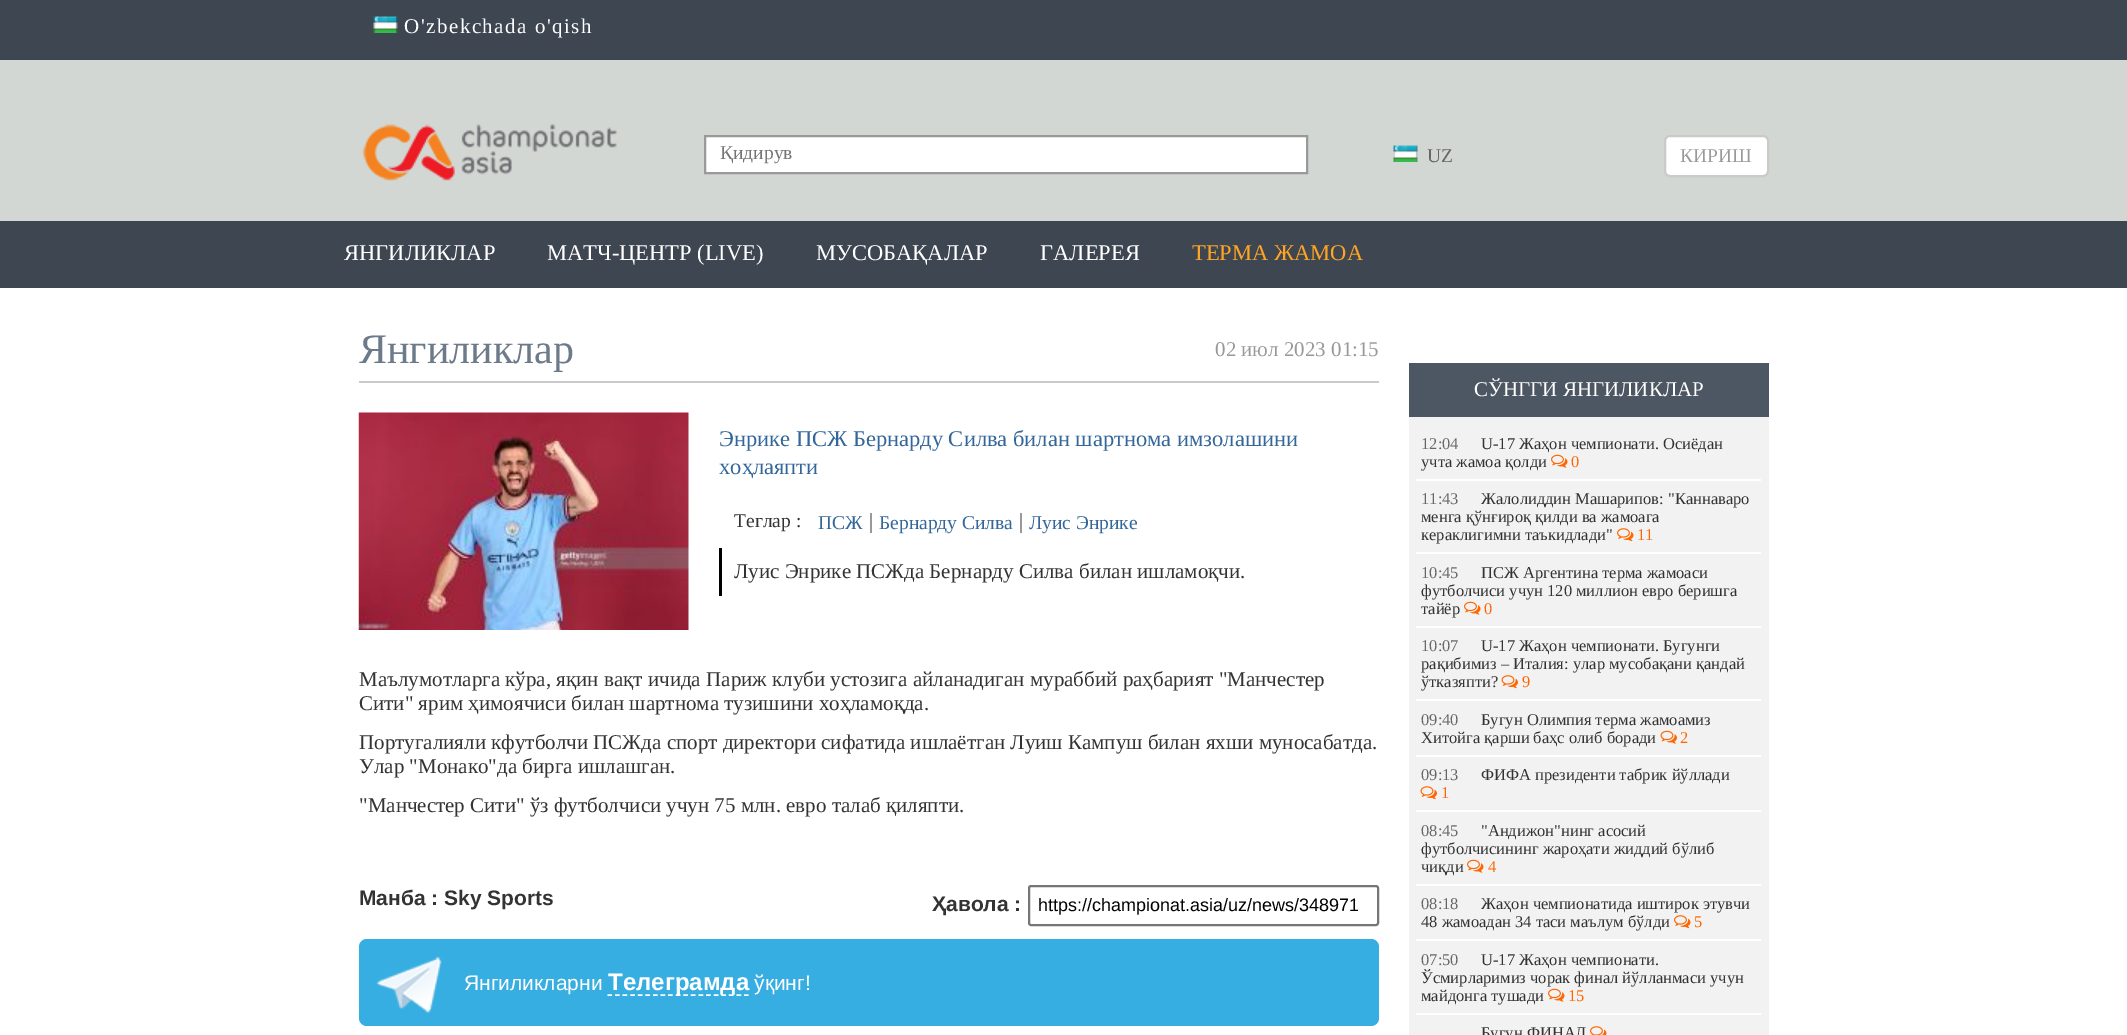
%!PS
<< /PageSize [2127 1035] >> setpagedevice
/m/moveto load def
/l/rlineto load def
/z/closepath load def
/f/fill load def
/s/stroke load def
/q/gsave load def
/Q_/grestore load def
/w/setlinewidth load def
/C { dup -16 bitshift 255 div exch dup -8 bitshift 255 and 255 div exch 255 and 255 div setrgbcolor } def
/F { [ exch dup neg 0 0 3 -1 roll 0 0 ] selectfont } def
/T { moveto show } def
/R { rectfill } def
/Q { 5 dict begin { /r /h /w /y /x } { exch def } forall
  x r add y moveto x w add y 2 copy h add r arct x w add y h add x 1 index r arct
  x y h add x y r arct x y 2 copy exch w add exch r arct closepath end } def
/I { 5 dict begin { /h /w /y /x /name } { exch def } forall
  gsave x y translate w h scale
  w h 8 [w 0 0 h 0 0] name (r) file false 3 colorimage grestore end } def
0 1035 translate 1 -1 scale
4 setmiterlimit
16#FFFFFF C
0 0 2127 1035 R
16#3E4651 C
0 0 2127 60 R
(1.rgb) 373 16 25 17 I
/LiberationSerif-Regular 21 F
16#FFFFFF C
404 33 m 1.5 0 (O'zbekchada o'qish) ashow
16#D2D7D3 C
0 60 2127 161 R
(2.rgb) 362 124 255 57 I
16#FFFFFF C
705 136 m 602 0 l 0 37 l -602 0 l z q f Q_
16#999999 C
2 w
s
/LiberationSerif-Regular 19.5 F
16#757575 C
(Қидирув) 720 159 T
(3.rgb) 1393 145 25 17 I
16#666666 C
(UZ) 1427 162 T
16#FFFFFF C
1665 136 103 40 5 Q q f Q_
16#CACACA C
s
16#999999 C
(КИРИШ) 1680 162 T
16#3E4651 C
0 221 2127 67 R
/LiberationSerif-Regular 22.5 F
16#FFFFFF C
(ЯНГИЛИКЛАР) 344 260 T
(МАТЧ-ЦЕНТР \(LIVE\)) 547 260 T
(МУСОБАҚАЛАР) 816 260 T
(ГАЛЕРЕЯ) 1040 260 T
16#FFA423 C
(ТЕРМА ЖАМОА) 1192 260 T
16#CACACA C
359 381 1020 2 R
/LiberationSerif-Regular 42 F
16#6C7A89 C
(Янгиликлар) 359 363 T
/LiberationSerif-Regular 21 F
16#999999 C
(02 июл 2023 01:15) 1215 356 T
(4.rgb) 358 412 331 218 I
/LiberationSerif-Regular 22.5 F
16#336699 C
(Энрике ПСЖ Бернарду Силва билан шартнома имзолашини) 719 446 T
(хоҳлаяпти) 719 474 T
/LiberationSerif-Regular 19.5 F
16#333333 C
(Теглар :) 734 527 T
16#336699 C
(ПСЖ) 818 529 T
16#999999 C
870 513 2 20 R
16#336699 C
(Бернарду Силва) 879 529 T
16#999999 C
1020 513 2 20 R
16#336699 C
(Луис Энрике) 1029 529 T
16#000000 C
719 548 3 48 R
/LiberationSerif-Regular 21 F
16#333333 C
(Луис Энрике ПСЖда Бернарду Силва билан ишламоқчи.) 734 578 T
(Маълумотларга кўра, яқин вақт ичида Париж клуби устозига айланадиган мураббий раҳбарият "Манчестер) 359 686 T
(Сити" ярим ҳимоячиси билан шартнома тузишини хоҳламоқда.) 359 710 T
(Португалияли кфутболчи ПСЖда спорт директори сифатида ишлаётган Луиш Кампуш билан яхши муносабатда.) 359 749 T
(Улар "Монако"да бирга ишлашган.) 359 773 T
("Манчестер Сити" ўз футболчиси учун 75 млн. евро талаб қиляпти.) 359 812 T
/LiberationSans-Bold 21 F
(Манба : Sky Sports) 359 905 T
(Ҳавола :) 932 911 T
16#767676 C
1029 886 349 39 2 Q s
/LiberationSans-Regular 18 F
16#000000 C
(https://championat.asia/uz/news/348971) 1038 911 T
16#37AEE2 C
359 939 1020 87 8 Q f
(5.rgb) 376 956 66 57 I
/LiberationSans-Regular 21 F
16#FFFFFF C
(Янгиликларни) 464 990 T
1.5 w
[4.5 3.09] 0 setdash
607.5 995 m 141 0 l s
/LiberationSans-Bold 24 F
(Телеграмда) 608 990 T
/LiberationSans-Regular 21 F
(ўқинг!) 754 990 T
16#4D5764 C
1409 363 360 54 R
/LiberationSerif-Regular 21 F
16#FFFFFF C
(СЎНГГИ ЯНГИЛИКЛАР) 1474 396 T
16#F2F2F2 C
1409 417 360 618 R
/LiberationSerif-Regular 16.5 F
16#666666 C
(12:04) 1421 449 T
16#333333 C
(U-17 Жаҳон чемпионати. Осиёдан) 1481 449 T
(учта жамоа қолди) 1421 467 T
(6.rgb) 1551 454 17 14 I
16#FF6600 C
(0) 1571 467 T
16#FFFFFF C
1416 479 345 2 R
16#666666 C
(11:43) 1421 504 T
16#333333 C
(Жалолиддин Машарипов: "Каннаваро) 1481 504 T
(менга қўнғироқ қилди ва жамоага) 1421 522 T
(кераклигимни таъкидлади") 1421 540 T
(7.rgb) 1617 528 17 14 I
16#FF6600 C
(11) 1637 540 T
16#FFFFFF C
1416 552 345 2 R
16#666666 C
(10:45) 1421 578 T
16#333333 C
(ПСЖ Аргентина терма жамоаси) 1481 578 T
(футболчиси учун 120 миллион евро беришга) 1421 596 T
(тайёр) 1421 614 T
(6.rgb) 1464 601 17 14 I
16#FF6600 C
(0) 1484 614 T
16#FFFFFF C
1416 626 345 2 R
16#666666 C
(10:07) 1421 651 T
16#333333 C
(U-17 Жаҳон чемпионати. Бугунги) 1481 651 T
(рақибимиз – Италия: улар мусобақани қандай) 1421 669 T
(ўтказяпти?) 1421 687 T
(8.rgb) 1501 675 17 14 I
16#FF6600 C
(9) 1522 687 T
16#FFFFFF C
1416 699 345 2 R
16#666666 C
(09:40) 1421 725 T
16#333333 C
(Бугун Олимпия терма жамоамиз) 1481 725 T
(Хитойга қарши баҳс олиб боради) 1421 743 T
(9.rgb) 1660 730 17 14 I
16#FF6600 C
(2) 1680 743 T
16#FFFFFF C
1416 755 345 2 R
16#666666 C
(09:13) 1421 780 T
16#333333 C
(ФИФА президенти табрик йўллади) 1481 780 T
(8.rgb) 1420 786 17 14 I
16#FF6600 C
(1) 1441 798 T
16#FFFFFF C
1416 810 345 2 R
16#666666 C
(08:45) 1421 836 T
16#333333 C
("Андижон"нинг асосий) 1481 836 T
(футболчисининг жароҳати жиддий бўлиб) 1421 854 T
(чиқди) 1421 872 T
(6.rgb) 1467 859 17 14 I
16#FF6600 C
(4) 1488 872 T
16#FFFFFF C
1416 884 345 2 R
16#666666 C
(08:18) 1421 909 T
16#333333 C
(Жаҳон чемпионатида иштирок этувчи) 1481 909 T
(48 жамоадан 34 таси маълум бўлди) 1421 927 T
(7.rgb) 1674 915 17 14 I
16#FF6600 C
(5) 1694 927 T
16#FFFFFF C
1416 939 345 2 R
16#666666 C
(07:50) 1421 965 T
16#333333 C
(U-17 Жаҳон чемпионати.) 1481 965 T
(Ўсмирларимиз чорак финал йўлланмаси учун) 1421 983 T
(майдонга тушади) 1421 1001 T
(6.rgb) 1548 988 17 14 I
16#FF6600 C
(15) 1568 1001 T
16#FFFFFF C
1416 1013 345 2 R
16#333333 C
(Бугун ФИНАЛ) 1481 1038 T
(10.rgb) 1590 1026 17 9 I
showpage
